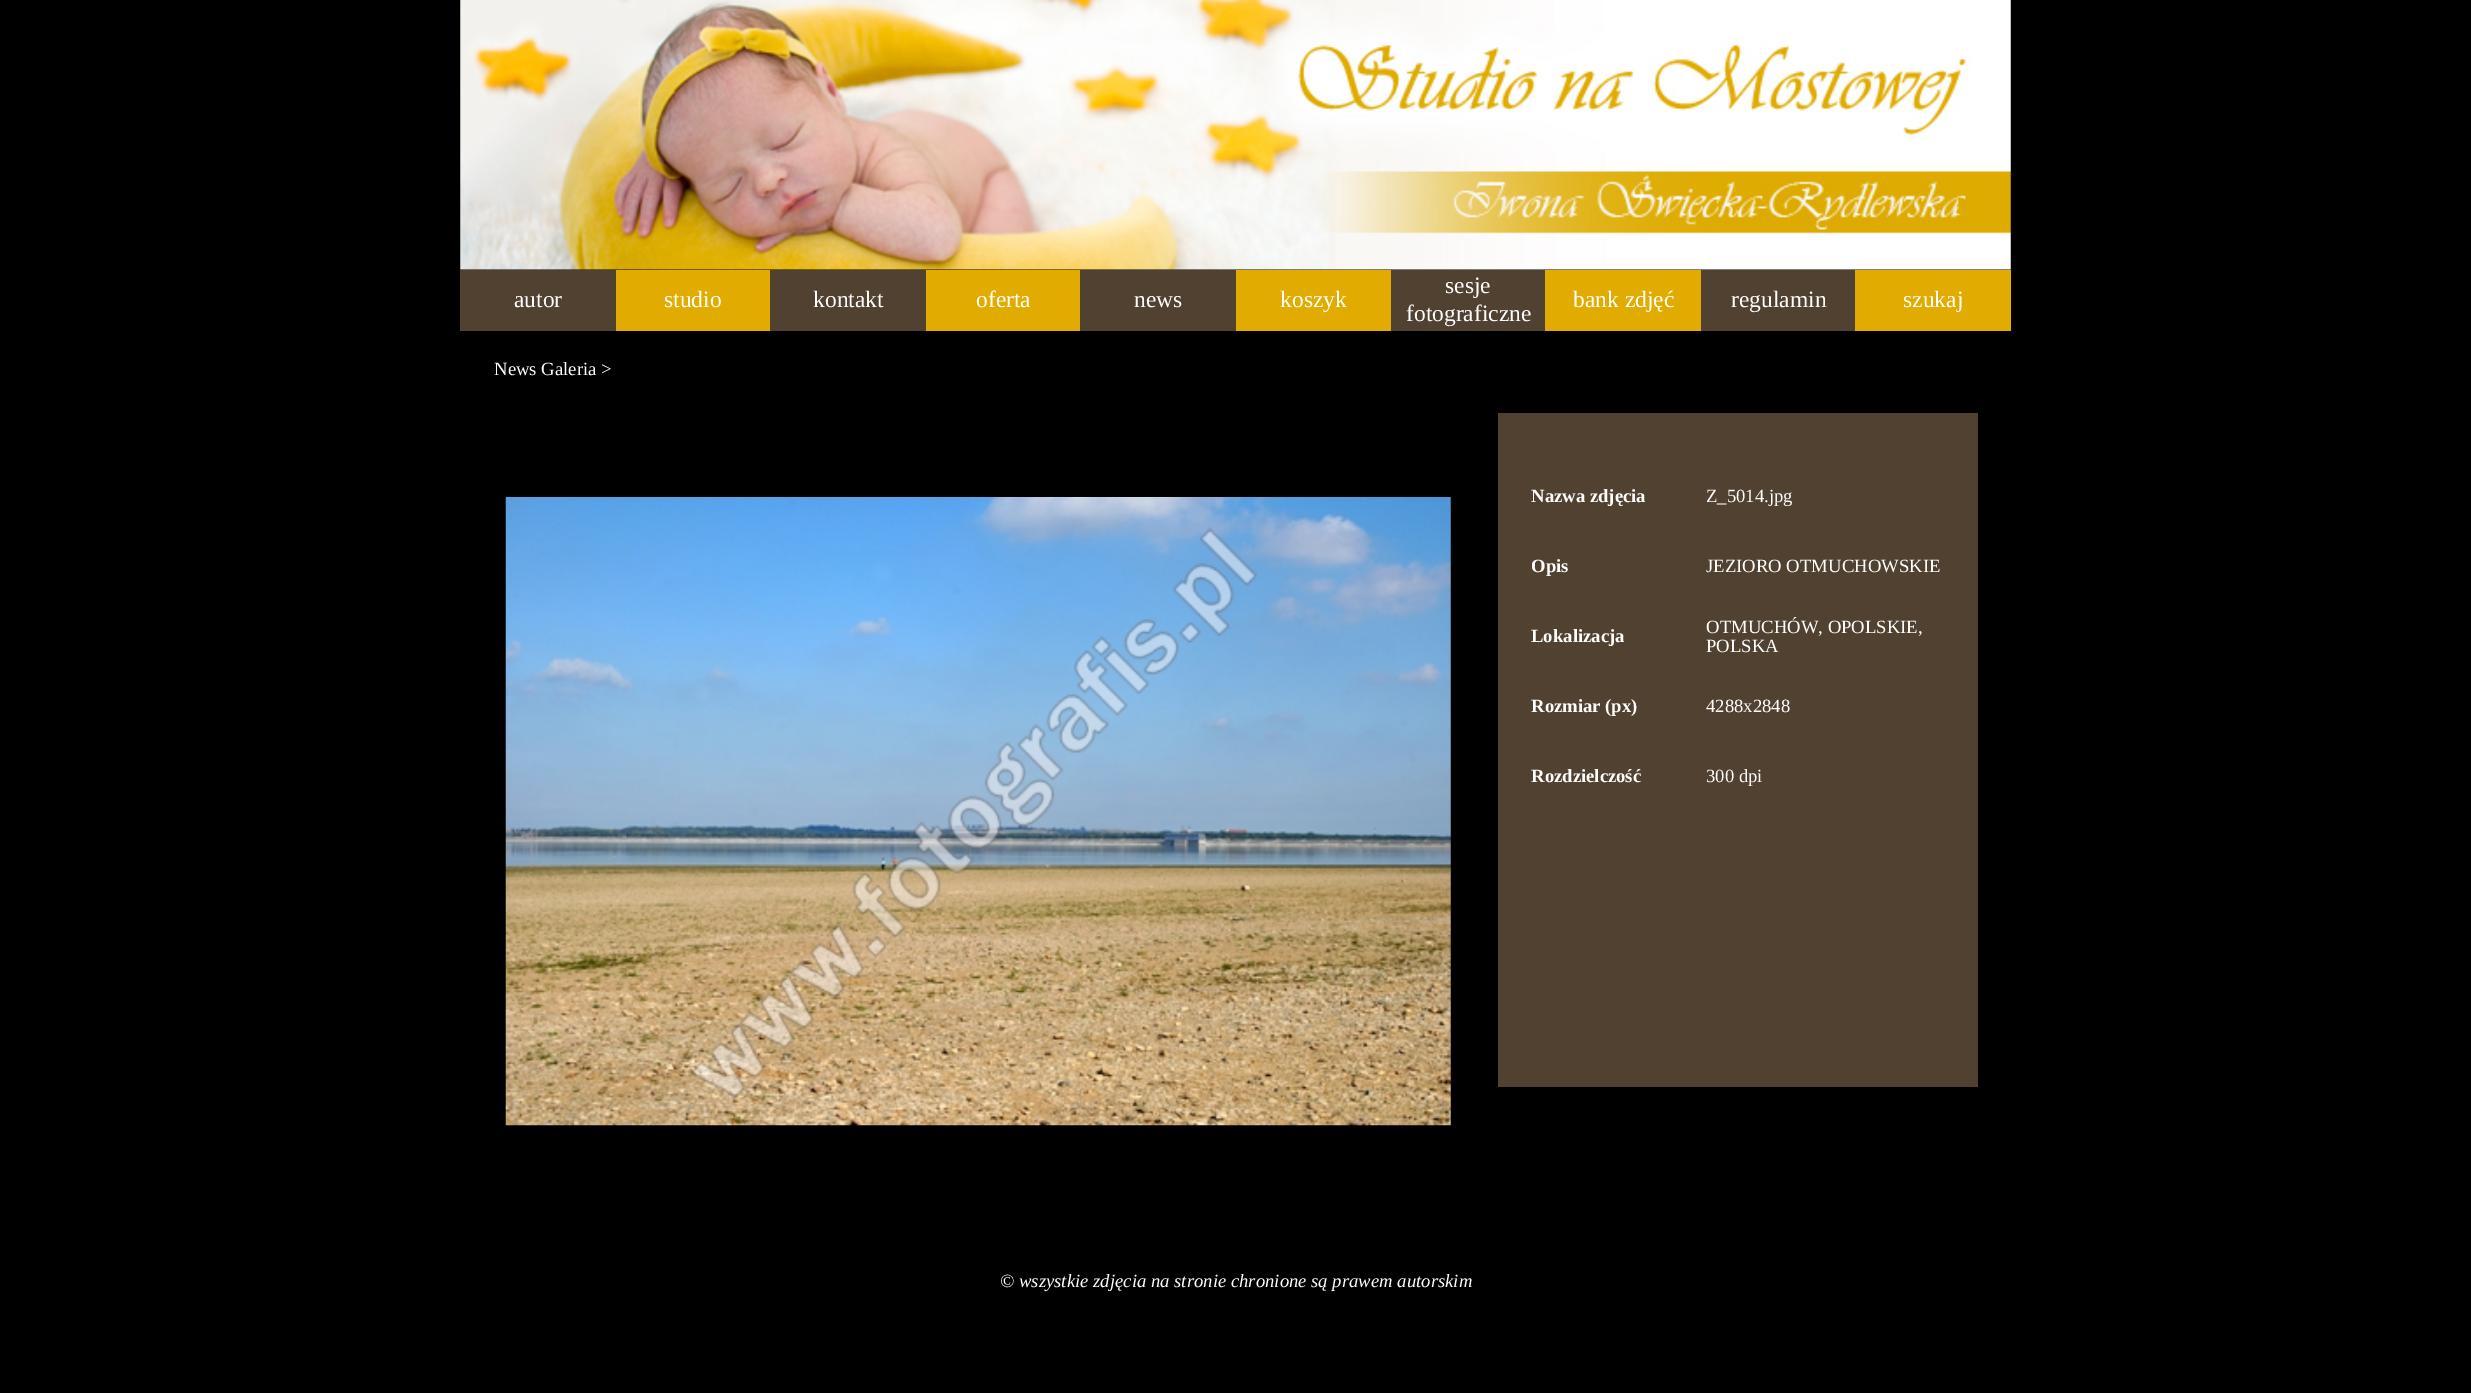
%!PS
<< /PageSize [2471 1393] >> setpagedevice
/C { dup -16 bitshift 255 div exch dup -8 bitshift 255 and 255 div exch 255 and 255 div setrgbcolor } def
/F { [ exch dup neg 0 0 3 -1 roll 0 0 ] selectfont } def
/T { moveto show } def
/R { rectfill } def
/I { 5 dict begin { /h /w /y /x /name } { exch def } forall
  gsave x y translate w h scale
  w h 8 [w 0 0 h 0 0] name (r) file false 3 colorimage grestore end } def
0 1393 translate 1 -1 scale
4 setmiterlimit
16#000000 C
0 0 2471 1393 R
(1.rgb) 460 0 1551 270 I
16#E1AB00 C
616 270 1395 61 R
16#514131 C
460 270 156 61 R
/LiberationSerif-Regular 23.5 F
16#FFFFFF C
(autor) 514 307 T
(studio) 664 307 T
16#514131 C
770 270 156 61 R
16#FFFFFF C
(kontakt) 813 307 T
(oferta) 976 307 T
16#514131 C
1080 270 156 61 R
16#FFFFFF C
(news) 1134 307 T
(koszyk) 1280 307 T
16#514131 C
1391 270 154 61 R
16#FFFFFF C
(sesje) 1445 293 T
(fotograficzne) 1406 321 T
(bank zdjęć) 1573 307 T
16#514131 C
1701 270 154 61 R
16#FFFFFF C
(regulamin) 1731 307 T
(szukaj) 1903 307 T
/LiberationSerif-Regular 18.7 F
(News Galeria >) 494 375 T
(2.rgb) 505 497 946 629 I
16#514131 C
1498 413 33 674 R
1531 413 447 674 R
/LiberationSerif-Bold 18.7 F
16#FFFFFF C
(Nazwa zdjęcia) 1531 502 T
/LiberationSerif-Regular 18.7 F
(Z_5014.jpg) 1706 502 T
/LiberationSerif-Bold 18.7 F
(Opis) 1531 572 T
/LiberationSerif-Regular 18.7 F
(JEZIORO OTMUCHOWSKIE) 1706 572 T
/LiberationSerif-Bold 18.7 F
(Lokalizacja) 1531 642 T
/LiberationSerif-Regular 18.7 F
(OTMUCHÓW, OPOLSKIE,) 1706 633 T
(POLSKA) 1706 652 T
/LiberationSerif-Bold 18.7 F
(Rozmiar \(px\)) 1531 712 T
/LiberationSerif-Regular 18.7 F
(4288x2848) 1706 712 T
/LiberationSerif-Bold 18.7 F
(Rozdzielczość) 1531 782 T
/LiberationSerif-Regular 18.7 F
(300 dpi) 1706 782 T
/LiberationSerif-Italic 18.7 F
(© wszystkie zdjęcia na stronie chronione są prawem autorskim) 1000 1287 T
showpage
